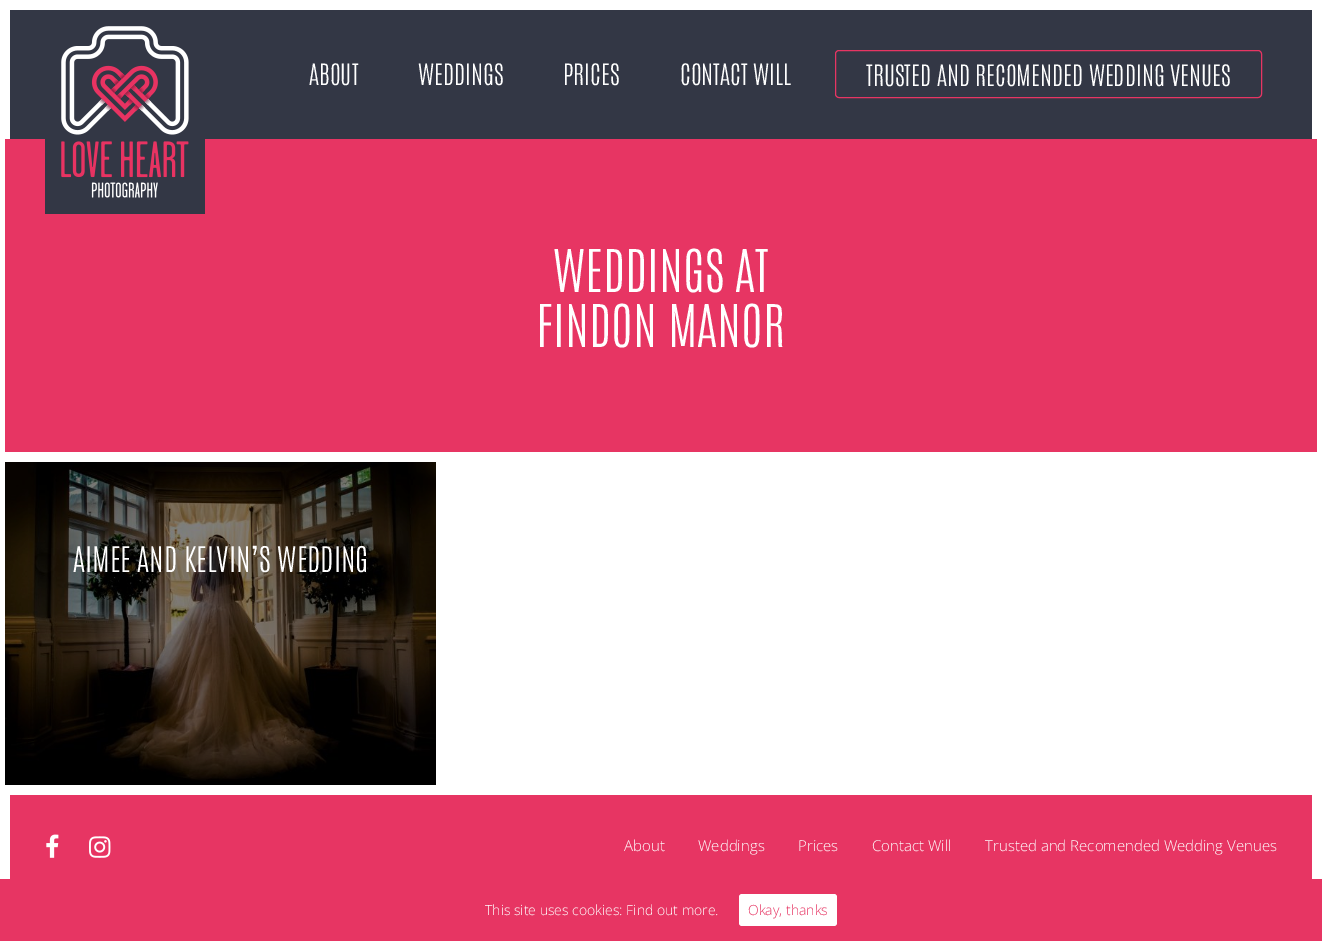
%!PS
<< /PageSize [1322 941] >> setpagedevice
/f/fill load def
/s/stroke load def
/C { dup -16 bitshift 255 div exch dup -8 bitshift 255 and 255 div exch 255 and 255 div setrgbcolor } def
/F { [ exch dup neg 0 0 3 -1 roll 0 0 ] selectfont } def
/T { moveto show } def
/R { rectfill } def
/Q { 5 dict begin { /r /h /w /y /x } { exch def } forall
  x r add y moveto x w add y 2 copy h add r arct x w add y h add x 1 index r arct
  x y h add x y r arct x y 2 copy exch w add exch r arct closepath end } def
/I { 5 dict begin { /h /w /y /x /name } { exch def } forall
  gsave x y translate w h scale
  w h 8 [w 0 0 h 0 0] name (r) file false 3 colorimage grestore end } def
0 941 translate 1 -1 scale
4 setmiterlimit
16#FFFFFF C
0 0 1322 941 R
16#333745 C
10 10 1302 129 R
16#E73563 C
5 139 1312 313 R
16#333745 C
45 139 160 75 R
(1.rgb) 61 26 128 172 I
/Antonio-Thin 25 F
16#FFFFFF C
(ABOUT) 309 85 T
(WEDDINGS) 418 85 T
(PRICES) 563 85 T
(CONTACT WILL) 680 85 T
16#E73563 C
835.5 50.5 426 47 3.5 Q s
16#FFFFFF C
(TRUSTED AND RECOMENDED WEDDING VENUES) 866 86 T
/Antonio-Thin 50 F
(WEDDINGS AT) 553 292 T
(FINDON MANOR) 536 347 T
(2.rgb) 5 462 431 323 I
/Antonio-Thin 30 F
(AIMEE AND KELVIN’S WEDDING) 73 572 T
16#E73563 C
10 795 1302 84 R
(3.rgb) 46 834 13 24 I
(4.rgb) 89 836 22 22 I
/OpenSans-Light 15 F
16#FFFFFF C
(About) 624 851 T
(Weddings) 698 851 T
(Prices) 798 851 T
(Contact Will) 872 851 T
(Trusted and Recomended Wedding Venues) 985 851 T
16#E73563 C
0 879 1322 62 R
/OpenSans-Light 14 F
16#FFFFFF C
(This site uses cookies: Find out more.) 485 915 T
739 894 98 32 3 Q f
16#E73563 C
(Okay, thanks) 748 915 T
showpage
